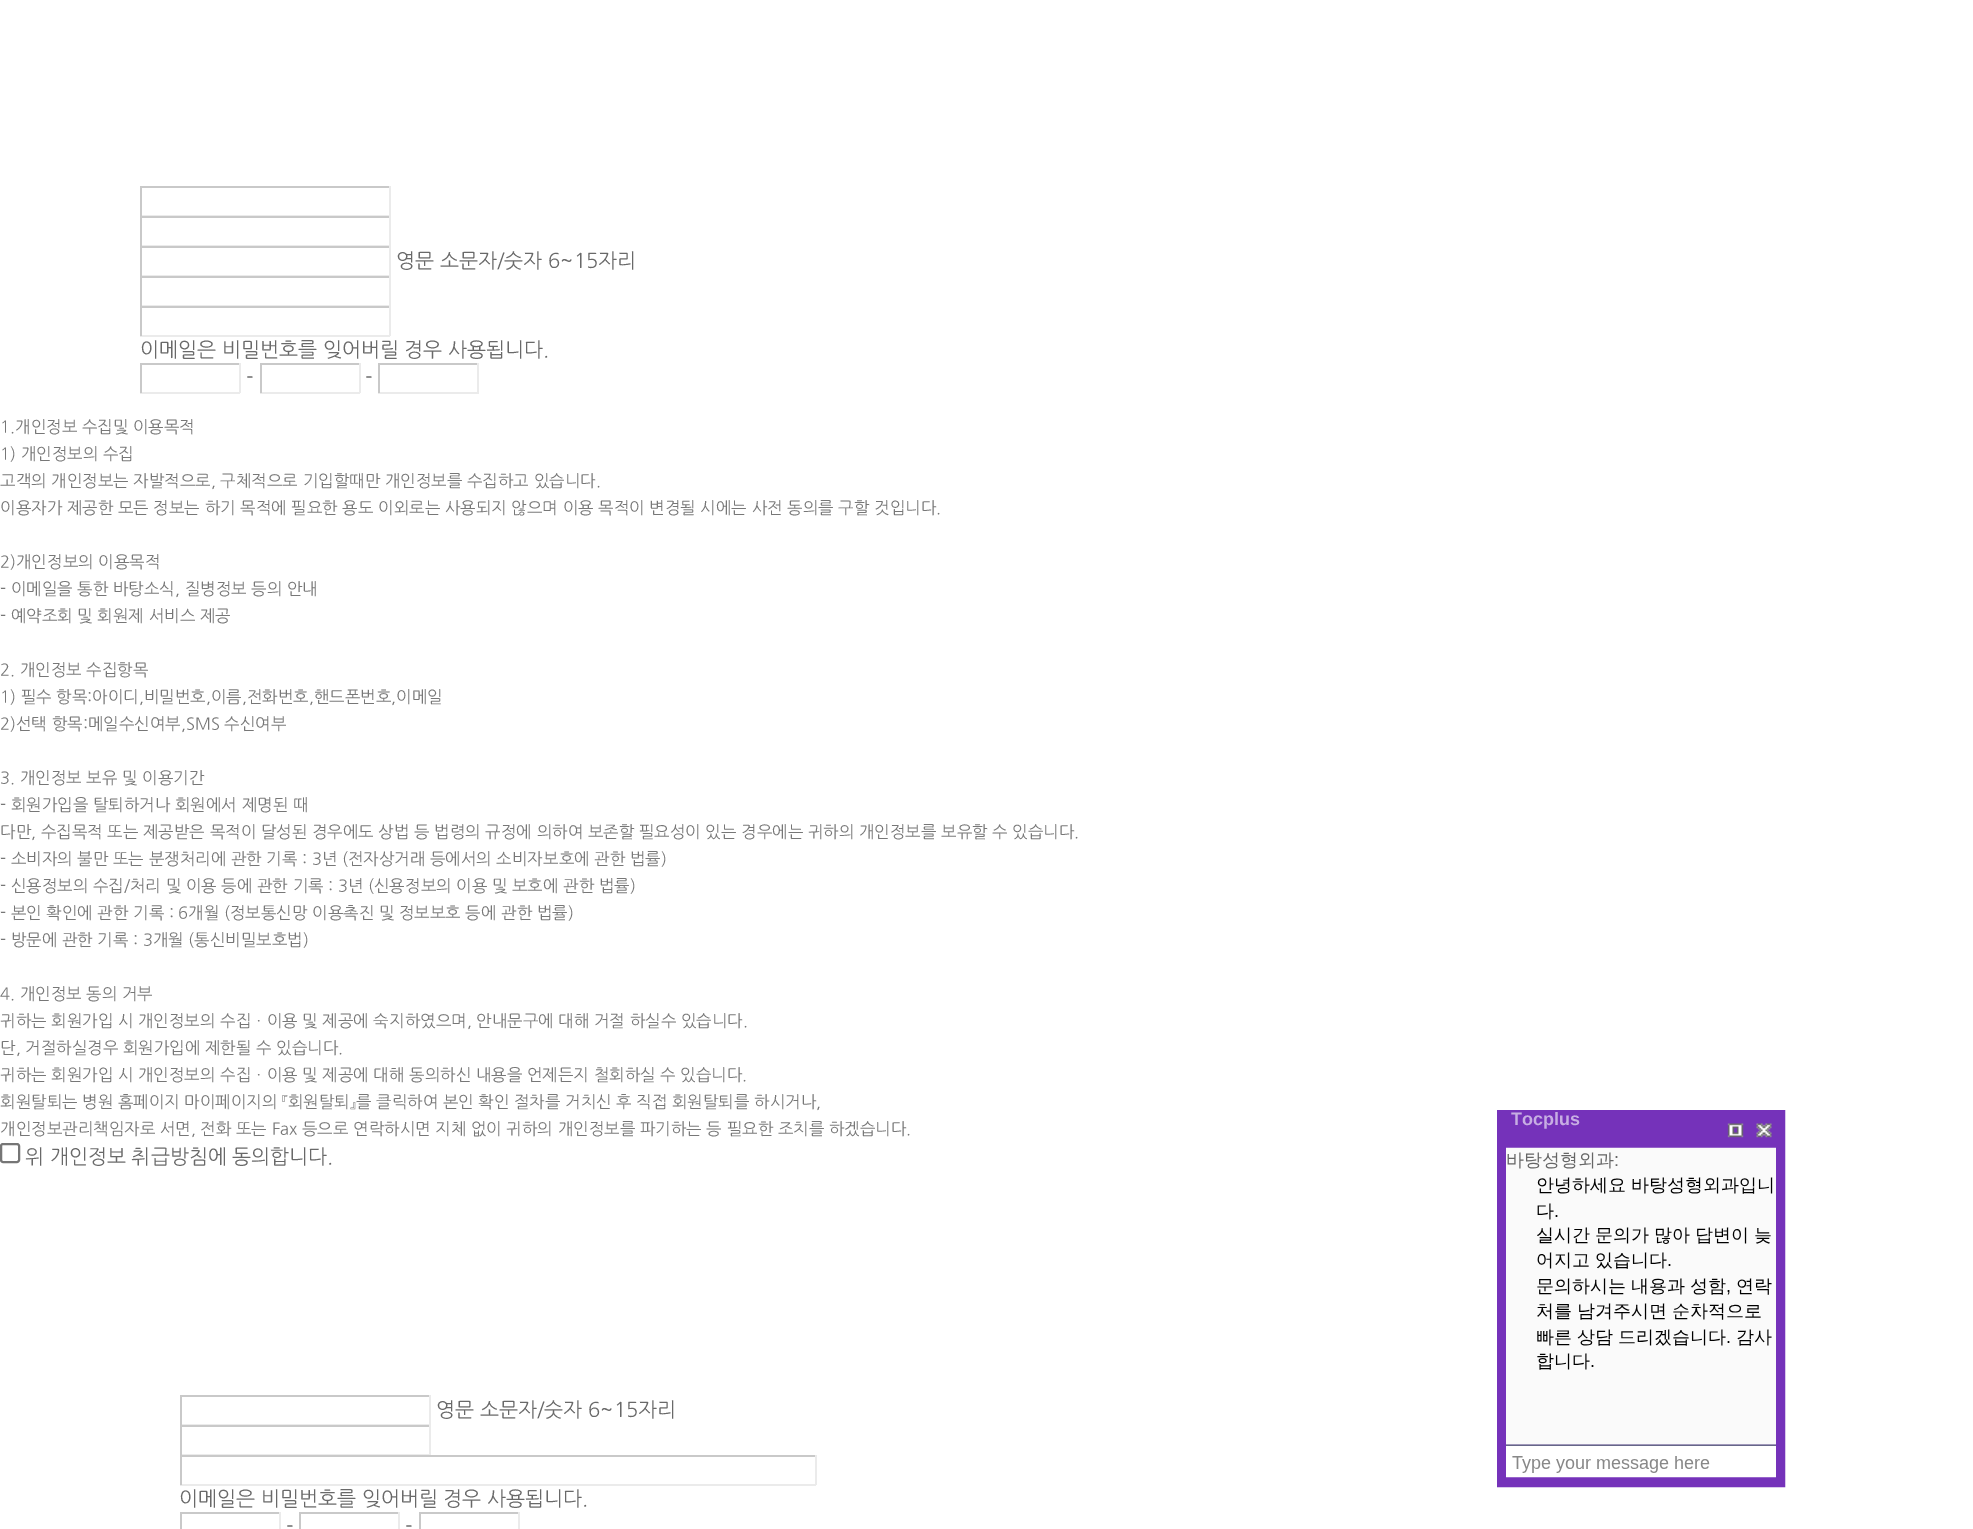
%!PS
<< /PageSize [1973 1529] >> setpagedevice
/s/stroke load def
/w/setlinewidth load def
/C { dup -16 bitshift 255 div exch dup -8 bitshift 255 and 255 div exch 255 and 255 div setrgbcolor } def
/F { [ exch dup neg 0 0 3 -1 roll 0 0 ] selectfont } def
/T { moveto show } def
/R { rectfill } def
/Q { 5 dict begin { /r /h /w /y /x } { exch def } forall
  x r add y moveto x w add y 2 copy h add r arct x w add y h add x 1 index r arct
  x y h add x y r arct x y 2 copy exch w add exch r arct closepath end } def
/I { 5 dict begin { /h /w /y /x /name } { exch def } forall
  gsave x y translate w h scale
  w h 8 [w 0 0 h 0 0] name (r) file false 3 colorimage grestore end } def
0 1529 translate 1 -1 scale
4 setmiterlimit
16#FFFFFF C
0 0 1973 1529 R
16#C9C9C9 C
140 186 250 2 R
16#EBEBEB C
389 186 2 30 R
140 215 250 1 R
16#C9C9C9 C
140 186 2 30 R
140 216 250 2 R
16#EBEBEB C
389 216 2 30 R
140 245 250 1 R
16#C9C9C9 C
140 216 2 30 R
140 246 250 2 R
16#EBEBEB C
389 246 2 30 R
140 275 250 1 R
16#C9C9C9 C
140 246 2 30 R
/NanumGothic-Regular 20.25 F
16#696969 C
(영문 소문자/숫자 6~15자리) 396 267 T
16#C9C9C9 C
140 276 250 2 R
16#EBEBEB C
389 276 2 30 R
140 305 250 1 R
16#C9C9C9 C
140 276 2 30 R
140 306 250 2 R
16#EBEBEB C
389 306 2 30 R
140 335 250 2 R
16#C9C9C9 C
140 306 2 30 R
16#696969 C
(이메일은 비밀번호를 잊어버릴 경우 사용됩니다.) 140 356 T
16#C9C9C9 C
140 363 100 2 R
16#EBEBEB C
239 363 2 30 R
140 392 100 2 R
16#C9C9C9 C
140 363 2 30 R
16#696969 C
(-) 246 384 T
16#C9C9C9 C
260 363 100 2 R
16#EBEBEB C
359 363 2 30 R
260 392 100 2 R
16#C9C9C9 C
260 363 2 30 R
16#696969 C
(-) 365 384 T
16#C9C9C9 C
378 363 101 2 R
16#EBEBEB C
477 363 2 30 R
378 392 101 2 R
16#C9C9C9 C
378 363 2 30 R
/NanumGothic-Regular 16.5 F
16#777777 C
(1.개인정보 수집및 이용목적) 0 432 T
(1\) 개인정보의 수집) 0 459 T
(고객의 개인정보는 자발적으로, 구체적으로 기입할때만 개인정보를 수집하고 있습니다.) 0 486 T
(이용자가 제공한 모든 정보는 하기 목적에 필요한 용도 이외로는 사용되지 않으며 이용 목적이 변경될 시에는 사전 동의를 구할 것입니다.) 0 513 T
(2\)개인정보의 이용목적) 0 567 T
(- 이메일을 통한 바탕소식, 질병정보 등의 안내) 0 594 T
(- 예약조회 및 회원제 서비스 제공) 0 621 T
(2. 개인정보 수집항목) 0 675 T
(1\) 필수 항목:아이디,비밀번호,이름,전화번호,핸드폰번호,이메일) 0 702 T
(2\)선택 항목:메일수신여부,SMS 수신여부) 0 729 T
(3. 개인정보 보유 및 이용기간) 0 783 T
(- 회원가입을 탈퇴하거나 회원에서 제명된 때) 0 810 T
(다만, 수집목적 또는 제공받은 목적이 달성된 경우에도 상법 등 법령의 규정에 의하여 보존할 필요성이 있는 경우에는 귀하의 개인정보를 보유할 수 있습니다.) 0 837 T
(- 소비자의 불만 또는 분쟁처리에 관한 기록 : 3년 \(전자상거래 등에서의 소비자보호에 관한 법률\)) 0 864 T
(- 신용정보의 수집/처리 및 이용 등에 관한 기록 : 3년 \(신용정보의 이용 및 보호에 관한 법률\)) 0 891 T
(- 본인 확인에 관한 기록 : 6개월 \(정보통신망 이용촉진 및 정보보호 등에 관한 법률\)) 0 918 T
(- 방문에 관한 기록 : 3개월 \(통신비밀보호법\)) 0 945 T
(4. 개인정보 동의 거부) 0 999 T
(귀하는 회원가입 시 개인정보의 수집ㆍ이용 및 제공에 숙지하였으며, 안내문구에 대해 거절 하실수 있습니다.) 0 1026 T
(단, 거절하실경우 회원가입에 제한될 수 있습니다.) 0 1053 T
(귀하는 회원가입 시 개인정보의 수집ㆍ이용 및 제공에 대해 동의하신 내용을 언제든지 철회하실 수 있습니다.) 0 1080 T
(회원탈퇴는 병원 홈페이지 마이페이지의 『회원탈퇴』를 클릭하여 본인 확인 절차를 거치신 후 직접 회원탈퇴를 하시거나,) 0 1107 T
(개인정보관리책임자로 서면, 전화 또는 Fax 등으로 연락하시면 지체 없이 귀하의 개인정보를 파기하는 등 필요한 조치를 하겠습니다.) 0 1134 T
16#767676 C
2 w
1 1144 18 18 2 Q s
/NanumGothic-Regular 20.25 F
16#696969 C
(위 개인정보 취급방침에 동의합니다.) 25 1163 T
16#C9C9C9 C
180 1395 251 2 R
16#EBEBEB C
429 1395 2 30 R
180 1424 251 1 R
16#C9C9C9 C
180 1395 2 30 R
16#696969 C
(영문 소문자/숫자 6~15자리) 436 1416 T
16#C9C9C9 C
180 1425 251 2 R
16#EBEBEB C
429 1425 2 30 R
180 1454 251 1 R
16#C9C9C9 C
180 1425 2 30 R
180 1455 636 2 R
16#EBEBEB C
815 1455 2 30 R
180 1484 636 2 R
16#C9C9C9 C
180 1455 2 30 R
16#696969 C
(이메일은 비밀번호를 잊어버릴 경우 사용됩니다.) 179 1505 T
16#C9C9C9 C
180 1512 101 2 R
16#EBEBEB C
279 1512 2 17 R
16#C9C9C9 C
180 1512 2 17 R
16#696969 C
(-) 286 1533 T
16#C9C9C9 C
299 1512 100 2 R
16#EBEBEB C
398 1512 2 17 R
16#C9C9C9 C
299 1512 2 17 R
16#696969 C
(-) 405 1533 T
16#C9C9C9 C
419 1512 100 2 R
16#EBEBEB C
518 1512 2 17 R
16#C9C9C9 C
419 1512 2 17 R
16#7532BA C
3 w
1498.5 1111.5 285 374 rectstroke
1500 1113 282 371 R
/LiberationSans-Bold 18 F
16#C7ADE3 C
(Tocplus) 1511 1125 T
(1.rgb) 1727 1123 17 15 I
(2.rgb) 1756 1123 16 15 I
(3.rgb) 1506 1147 270 331 I
showpage
